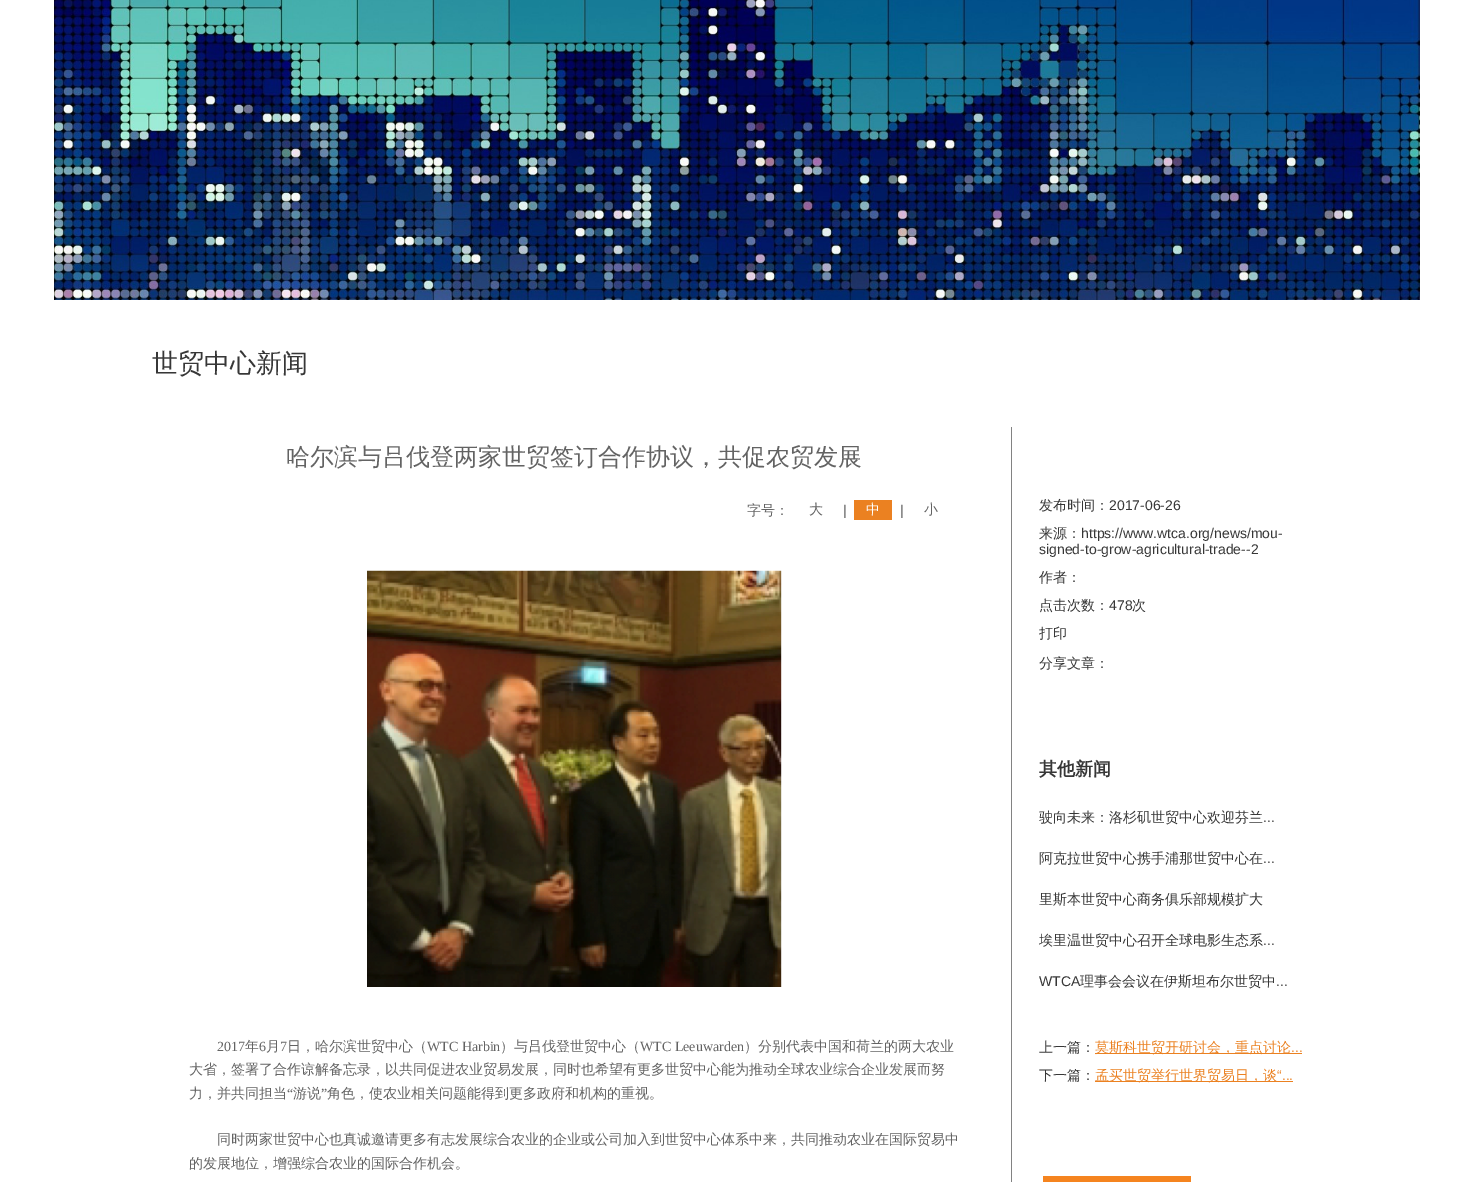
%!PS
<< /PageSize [1473 1182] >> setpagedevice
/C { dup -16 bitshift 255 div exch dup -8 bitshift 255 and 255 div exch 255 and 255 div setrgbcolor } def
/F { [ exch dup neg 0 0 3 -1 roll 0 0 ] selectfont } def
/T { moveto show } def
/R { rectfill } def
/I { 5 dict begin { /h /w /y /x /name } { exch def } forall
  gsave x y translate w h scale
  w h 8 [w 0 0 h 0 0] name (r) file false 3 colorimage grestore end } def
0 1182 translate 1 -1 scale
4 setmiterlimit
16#FFFFFF C
0 0 1473 1182 R
(1.rgb) 54 0 1366 300 I
/WenQuanYiZenHei-Medium 26 F
16#373737 C
(世贸中心新闻) 152 372 T
16#828282 C
1011 427 1 755 R
/WenQuanYiZenHei-Medium 24 F
16#636363 C
(哈尔滨与吕伐登两家世贸签订合作协议，共促农贸发展) 286 465 T
/WenQuanYiZenHei-Medium 14 F
(字号：) 747 515 T
(大) 809 514 T
/LiberationSans-Regular 14 F
(|) 843 515 T
16#EB8121 C
854 500 38 20 R
/WenQuanYiZenHei-Medium 14 F
16#FFFFFF C
(中) 866 514 T
/LiberationSans-Regular 14 F
16#636363 C
(|) 900 515 T
/WenQuanYiZenHei-Medium 14 F
(小) 924 514 T
(2.rgb) 367 570 415 417 I
/LiberationSerif-Regular 14 F
(2017) 217 1051 T
/WenQuanYiZenHei-Medium 14 F
(年) 245 1051 T
/LiberationSerif-Regular 14 F
(6) 259 1051 T
/WenQuanYiZenHei-Medium 14 F
(月) 266 1051 T
/LiberationSerif-Regular 14 F
(7) 280 1051 T
/WenQuanYiZenHei-Medium 14 F
(日，哈尔滨世贸中心（) 287 1051 T
/LiberationSerif-Regular 14 F
(WTC Harbin) 427 1051 T
/WenQuanYiZenHei-Medium 14 F
(）与吕伐登世贸中心（) 500 1051 T
/LiberationSerif-Regular 14 F
(WTC Leeuwarden) 640 1051 T
/WenQuanYiZenHei-Medium 14 F
(）分别代表中国和荷兰的两大农业) 744 1051 T
(大省，签署了合作谅解备忘录，以共同促进农业贸易发展，同时也希望有更多世贸中心能为推动全球农业综合企业发展而努) 189 1074 T
(力，并共同担当) 189 1098 T
/LiberationSerif-Regular 14 F
(“) 287 1098 T
/WenQuanYiZenHei-Medium 14 F
(游说) 293 1098 T
/LiberationSerif-Regular 14 F
(”) 321 1098 T
/WenQuanYiZenHei-Medium 14 F
(角色，使农业相关问题能得到更多政府和机构的重视。) 327 1098 T
(同时两家世贸中心也真诚邀请更多有志发展综合农业的企业或公司加入到世贸中心体系中来，共同推动农业在国际贸易中) 217 1144 T
(的发展地位，增强综合农业的国际合作机会。) 189 1168 T
16#F5841F C
1043 1176 148 6 R
16#373737 C
(发布时间：) 1039 510 T
/LiberationSans-Regular 14 F
(2017-06-26) 1109 510 T
/WenQuanYiZenHei-Medium 14 F
(来源：) 1039 538 T
/LiberationSans-Regular 14 F
(https://www.wtca.org/news/mou-) 1081 538 T
(signed-to-grow-agricultural-trade--2) 1039 554 T
/WenQuanYiZenHei-Medium 14 F
(作者：) 1039 582 T
(点击次数：) 1039 610 T
/LiberationSans-Regular 14 F
(478) 1109 610 T
/WenQuanYiZenHei-Medium 14 F
(次) 1132 610 T
(打印) 1039 638 T
(分享文章：) 1039 668 T
/WenQuanYiZenHei-Bold 18 F
(其他新闻) 1039 775 T
/WenQuanYiZenHei-Medium 14 F
(驶向未来：洛杉矶世贸中心欢迎芬兰) 1039 822 T
/LiberationSans-Regular 14 F
(...) 1263 822 T
/WenQuanYiZenHei-Medium 14 F
(阿克拉世贸中心携手浦那世贸中心在) 1039 863 T
/LiberationSans-Regular 14 F
(...) 1263 863 T
/WenQuanYiZenHei-Medium 14 F
(里斯本世贸中心商务俱乐部规模扩大) 1039 904 T
(埃里温世贸中心召开全球电影生态系) 1039 945 T
/LiberationSans-Regular 14 F
(...) 1263 945 T
(WTCA) 1039 986 T
/WenQuanYiZenHei-Medium 14 F
(理事会会议在伊斯坦布尔世贸中) 1080 986 T
/LiberationSans-Regular 14 F
(...) 1276 986 T
/WenQuanYiZenHei-Medium 14 F
(上一篇：) 1039 1052 T
16#EB8121 C
1095 1053 207 1 R
(莫斯科世贸开研讨会，重点讨论) 1095 1052 T
/LiberationSans-Regular 14 F
(...) 1291 1052 T
/WenQuanYiZenHei-Medium 14 F
16#373737 C
(下一篇：) 1039 1080 T
16#EB8121 C
1095 1081 198 1 R
(孟买世贸举行世界贸易日，谈) 1095 1080 T
/LiberationSans-Regular 14 F
(“...) 1277 1080 T
showpage
